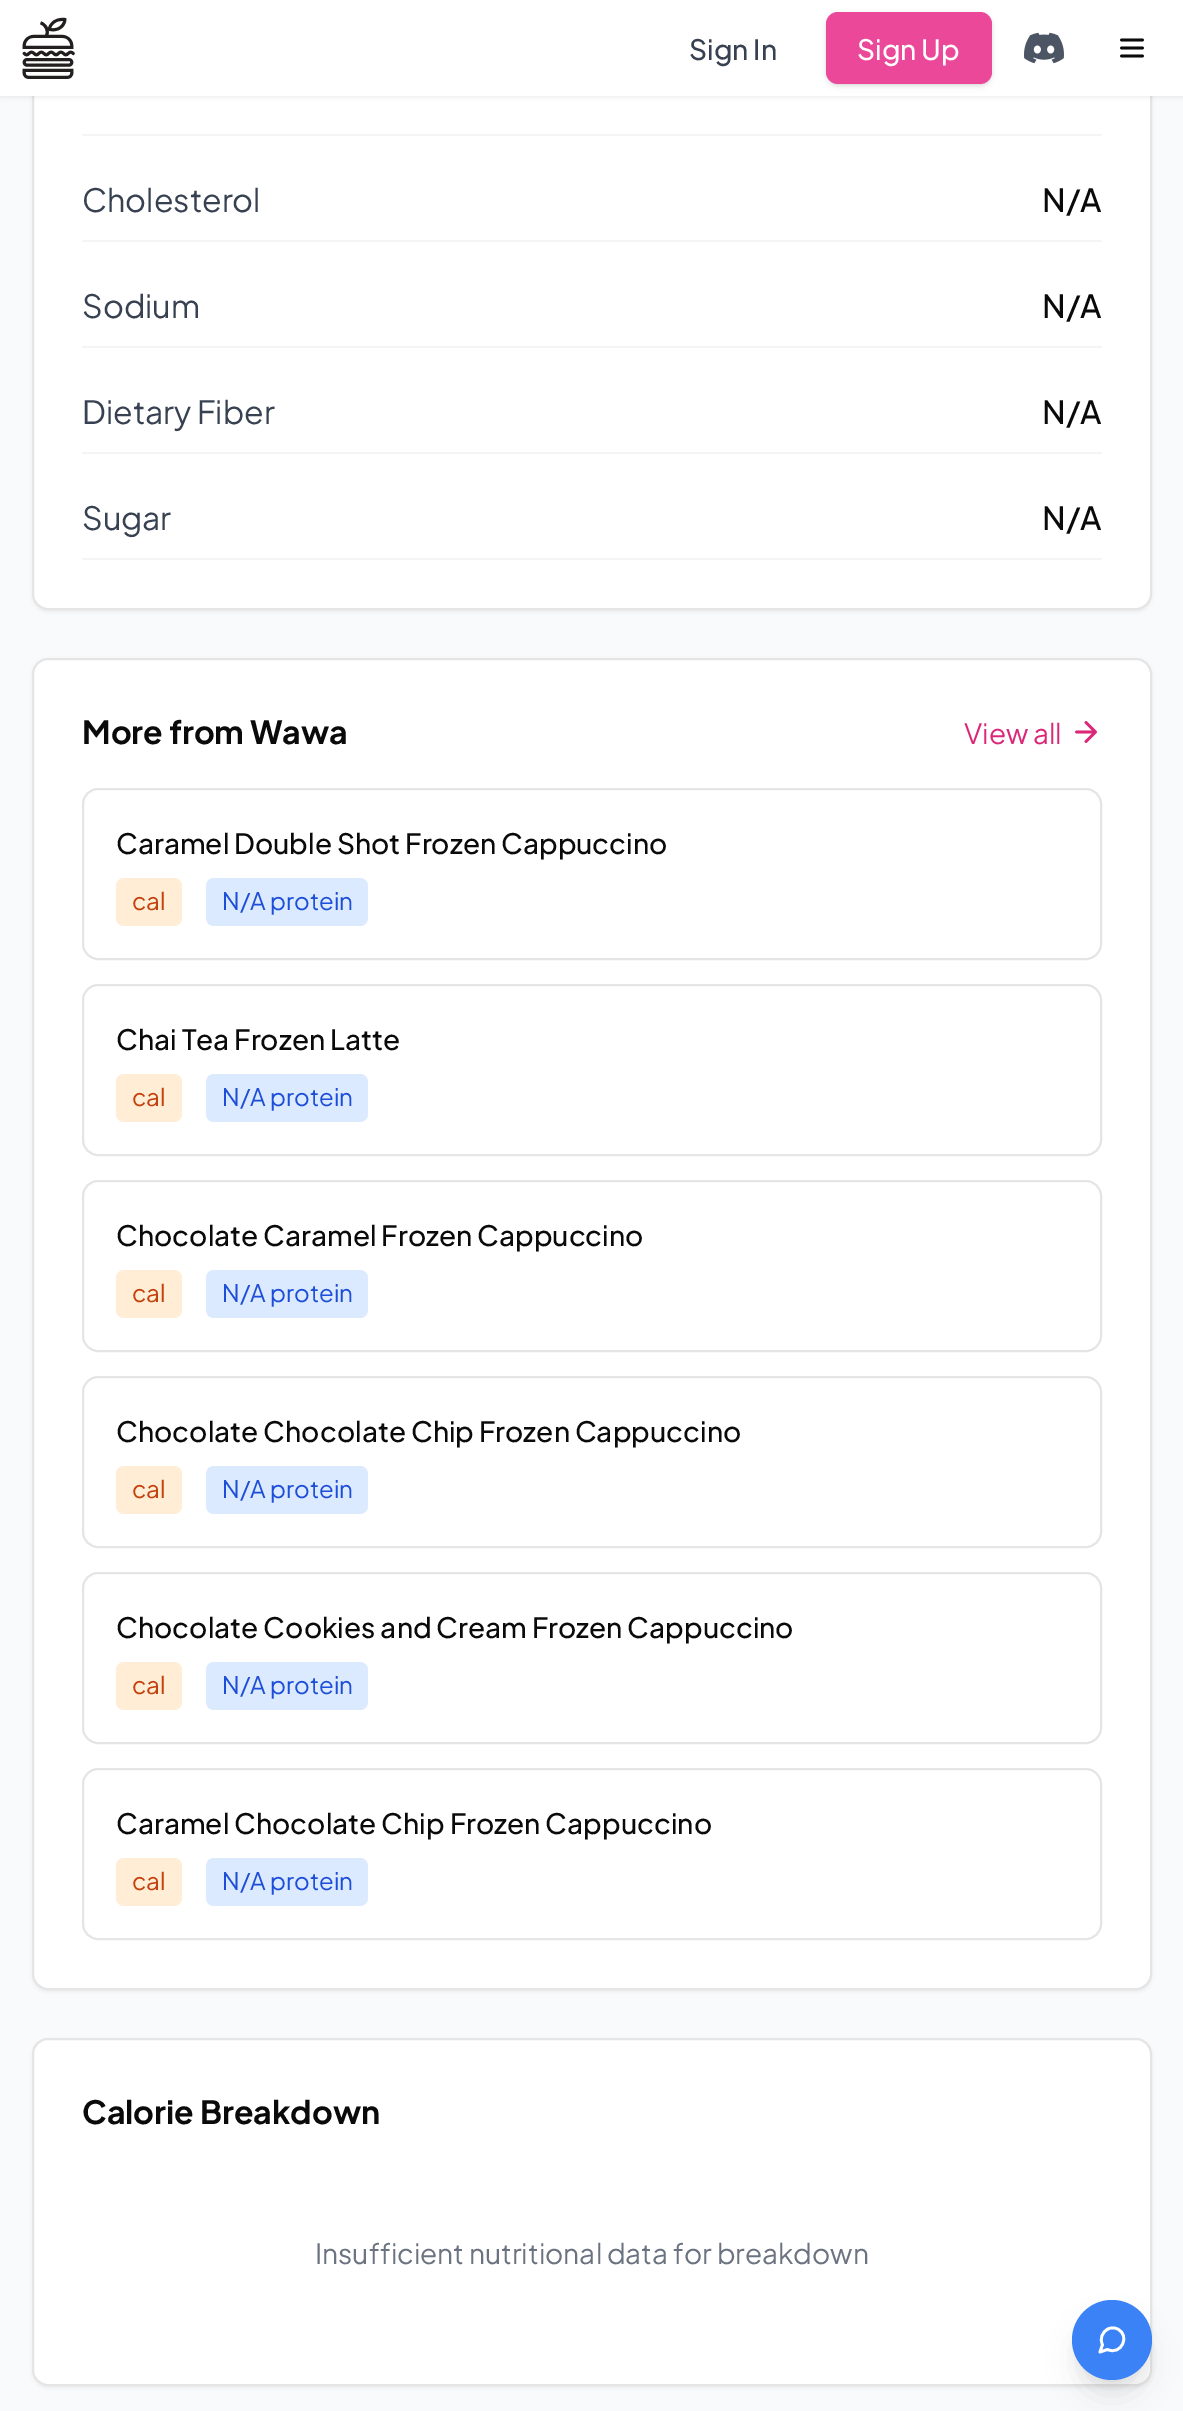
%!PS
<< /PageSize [1183 2411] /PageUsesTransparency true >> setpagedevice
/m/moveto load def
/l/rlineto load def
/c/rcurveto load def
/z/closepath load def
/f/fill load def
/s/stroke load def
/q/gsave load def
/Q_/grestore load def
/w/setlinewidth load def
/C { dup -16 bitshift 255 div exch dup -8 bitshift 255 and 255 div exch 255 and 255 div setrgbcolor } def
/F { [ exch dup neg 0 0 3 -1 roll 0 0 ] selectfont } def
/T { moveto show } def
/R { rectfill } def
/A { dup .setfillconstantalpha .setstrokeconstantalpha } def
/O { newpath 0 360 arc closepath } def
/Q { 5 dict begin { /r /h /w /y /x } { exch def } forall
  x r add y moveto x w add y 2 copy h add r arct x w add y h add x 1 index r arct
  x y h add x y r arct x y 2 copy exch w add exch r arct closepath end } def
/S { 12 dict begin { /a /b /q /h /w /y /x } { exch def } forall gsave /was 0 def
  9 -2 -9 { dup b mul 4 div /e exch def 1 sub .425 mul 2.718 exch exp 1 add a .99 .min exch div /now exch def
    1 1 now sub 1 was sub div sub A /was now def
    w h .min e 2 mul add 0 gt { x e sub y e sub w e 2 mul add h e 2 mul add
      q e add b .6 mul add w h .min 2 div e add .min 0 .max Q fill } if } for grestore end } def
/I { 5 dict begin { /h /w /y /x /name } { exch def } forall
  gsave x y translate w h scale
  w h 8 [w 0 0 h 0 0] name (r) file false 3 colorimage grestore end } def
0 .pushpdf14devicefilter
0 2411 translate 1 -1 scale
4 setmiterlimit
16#F9FAFB C
0 0 1183 2411 R
16#000000 C
32 -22 1120 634 16 2 .05 S
16#FFFFFF C
33 -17 1118 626 15 Q q f Q_
16#E5E5E5 C
2 w
s
16#000000 C
0 2 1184 96 0 2 .05 S
16#FFFFFF C
0 0 1183 96 R
(1.rgb) 22 17 53 62 I
/PlusJakartaSans-Medium 28 F
16#374151 C
(Sign In) 689 60 T
16#000000 C
828 16 162 68 10 2 .1 S
826 14 166 72 12 3 .1 S
16#EC4899 C
826 12 166 72 12 Q f
16#FFFFFF C
(Sign Up) 857 60 T
(2.rgb) 1024 32 40 32 I
16#0A0A0A C
2.7 w
1 setlinecap
1 setlinejoin
1121.5 48 m 21 0 l 1121.5 40 m 21 0 l 1121.5 56 m 21 0 l s
16#F3F4F6 C
82 134 1020 2 R
82 240 1020 2 R
/PlusJakartaSans-Regular 32 F
16#374151 C
(Cholesterol) 82 212 T
/PlusJakartaSans-Medium 32 F
16#0A0A0A C
(N/A) 1042 212 T
16#F3F4F6 C
82 346 1020 2 R
/PlusJakartaSans-Regular 32 F
16#374151 C
(Sodium) 82 318 T
/PlusJakartaSans-Medium 32 F
16#0A0A0A C
(N/A) 1042 318 T
16#F3F4F6 C
82 452 1020 2 R
/PlusJakartaSans-Regular 32 F
16#374151 C
(Dietary Fiber) 82 424 T
/PlusJakartaSans-Medium 32 F
16#0A0A0A C
(N/A) 1042 424 T
16#F3F4F6 C
82 558 1020 2 R
/PlusJakartaSans-Regular 32 F
16#374151 C
(Sugar) 82 530 T
/PlusJakartaSans-Medium 32 F
16#0A0A0A C
(N/A) 1042 530 T
16#000000 C
32 660 1120 1332 16 2 .05 S
16#FFFFFF C
33 659 1118 1330 15 Q q f Q_
16#E5E5E5 C
2 w
0 setlinecap
0 setlinejoin
s
/PlusJakartaSans-Bold 32 F
16#0A0A0A C
(More from Wawa) 82 744 T
/PlusJakartaSans-Regular 28 F
16#DB2777 C
(View all) 964 744 T
2.7 w
1 setlinecap
1 setlinejoin
1076.5 732 m 19 0 l 1086 722.5 m 9.5 9.5 l -9.5 9.5 l s
16#E5E5E5 C
2 w
0 setlinecap
0 setlinejoin
83 789 1018 170 15 Q s
/PlusJakartaSans-Medium 28 F
16#0A0A0A C
(Caramel Double Shot Frozen Cappuccino) 116 854 T
16#FFEDD5 C
116 878 66 48 8 Q f
/PlusJakartaSans-Regular 24 F
16#C2410C C
(cal) 132 910 T
16#DBEAFE C
206 878 162 48 8 Q f
16#1D4ED8 C
(N/A protein) 222 910 T
16#E5E5E5 C
83 985 1018 170 15 Q s
/PlusJakartaSans-Medium 28 F
16#0A0A0A C
(Chai Tea Frozen Latte) 116 1050 T
16#FFEDD5 C
116 1074 66 48 8 Q f
/PlusJakartaSans-Regular 24 F
16#C2410C C
(cal) 132 1106 T
16#DBEAFE C
206 1074 162 48 8 Q f
16#1D4ED8 C
(N/A protein) 222 1106 T
16#E5E5E5 C
83 1181 1018 170 15 Q s
/PlusJakartaSans-Medium 28 F
16#0A0A0A C
(Chocolate Caramel Frozen Cappuccino) 116 1246 T
16#FFEDD5 C
116 1270 66 48 8 Q f
/PlusJakartaSans-Regular 24 F
16#C2410C C
(cal) 132 1302 T
16#DBEAFE C
206 1270 162 48 8 Q f
16#1D4ED8 C
(N/A protein) 222 1302 T
16#E5E5E5 C
83 1377 1018 170 15 Q s
/PlusJakartaSans-Medium 28 F
16#0A0A0A C
(Chocolate Chocolate Chip Frozen Cappuccino) 116 1442 T
16#FFEDD5 C
116 1466 66 48 8 Q f
/PlusJakartaSans-Regular 24 F
16#C2410C C
(cal) 132 1498 T
16#DBEAFE C
206 1466 162 48 8 Q f
16#1D4ED8 C
(N/A protein) 222 1498 T
16#E5E5E5 C
83 1573 1018 170 15 Q s
/PlusJakartaSans-Medium 28 F
16#0A0A0A C
(Chocolate Cookies and Cream Frozen Cappuccino) 116 1638 T
16#FFEDD5 C
116 1662 66 48 8 Q f
/PlusJakartaSans-Regular 24 F
16#C2410C C
(cal) 132 1694 T
16#DBEAFE C
206 1662 162 48 8 Q f
16#1D4ED8 C
(N/A protein) 222 1694 T
16#E5E5E5 C
83 1769 1018 170 15 Q s
/PlusJakartaSans-Medium 28 F
16#0A0A0A C
(Caramel Chocolate Chip Frozen Cappuccino) 116 1834 T
16#FFEDD5 C
116 1858 66 48 8 Q f
/PlusJakartaSans-Regular 24 F
16#C2410C C
(cal) 132 1890 T
16#DBEAFE C
206 1858 162 48 8 Q f
16#1D4ED8 C
(N/A protein) 222 1890 T
16#000000 C
32 2040 1120 348 16 2 .05 S
16#FFFFFF C
33 2039 1118 346 15 Q q f Q_
16#E5E5E5 C
s
/PlusJakartaSans-Bold 32 F
16#0A0A0A C
(Calorie Breakdown) 82 2124 T
/PlusJakartaSans-Regular 28 F
16#6B7280 C
(Insufficient nutritional data for breakdown) 315 2264 T
16#000000 C
1080 2316 64 64 32 6 .1 S
1078 2326 68 68 34 15 .1 S
16#3B82F6 C
1112 2340 40 O f
16#FFFFFF C
2.7 w
1 setlinecap
1 setlinejoin
1100 2352 m 2.5 -7.5 l -3 -5.5 -.5 -12.5 5.5 -15.5 c 3 -1.5 6.5 -1.5 9.5 0 c 13.5 6.5 3.5 27 -10 20.5 c z s
.poppdf14devicefilter showpage
